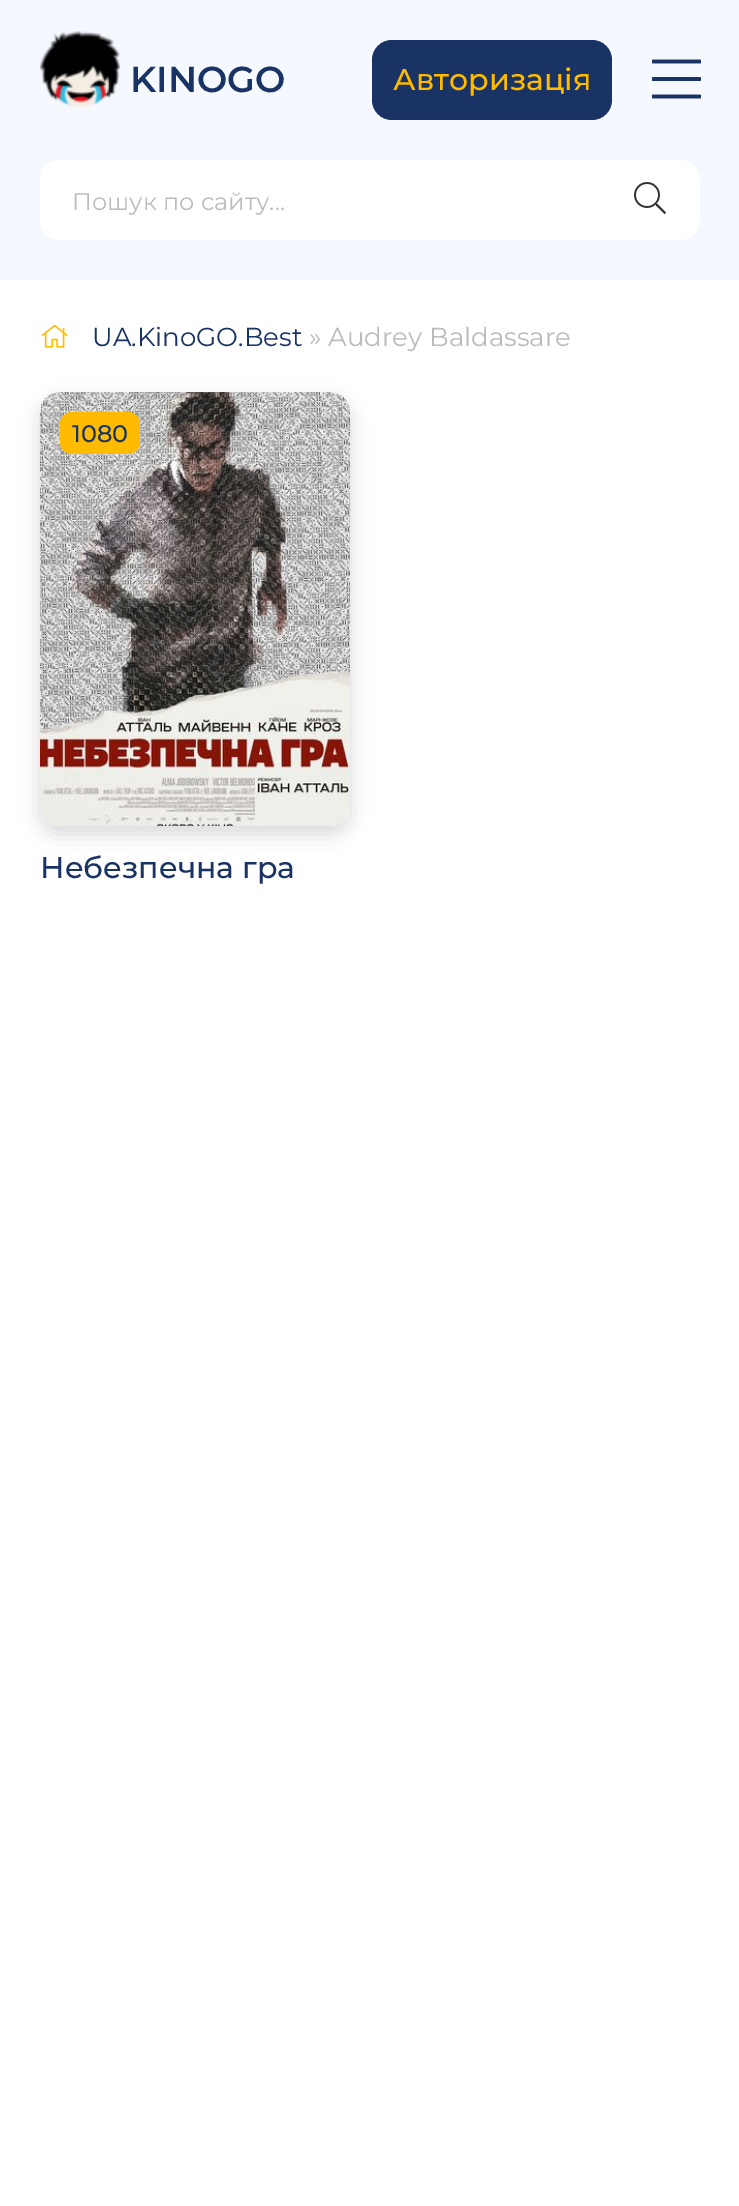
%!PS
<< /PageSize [739 2206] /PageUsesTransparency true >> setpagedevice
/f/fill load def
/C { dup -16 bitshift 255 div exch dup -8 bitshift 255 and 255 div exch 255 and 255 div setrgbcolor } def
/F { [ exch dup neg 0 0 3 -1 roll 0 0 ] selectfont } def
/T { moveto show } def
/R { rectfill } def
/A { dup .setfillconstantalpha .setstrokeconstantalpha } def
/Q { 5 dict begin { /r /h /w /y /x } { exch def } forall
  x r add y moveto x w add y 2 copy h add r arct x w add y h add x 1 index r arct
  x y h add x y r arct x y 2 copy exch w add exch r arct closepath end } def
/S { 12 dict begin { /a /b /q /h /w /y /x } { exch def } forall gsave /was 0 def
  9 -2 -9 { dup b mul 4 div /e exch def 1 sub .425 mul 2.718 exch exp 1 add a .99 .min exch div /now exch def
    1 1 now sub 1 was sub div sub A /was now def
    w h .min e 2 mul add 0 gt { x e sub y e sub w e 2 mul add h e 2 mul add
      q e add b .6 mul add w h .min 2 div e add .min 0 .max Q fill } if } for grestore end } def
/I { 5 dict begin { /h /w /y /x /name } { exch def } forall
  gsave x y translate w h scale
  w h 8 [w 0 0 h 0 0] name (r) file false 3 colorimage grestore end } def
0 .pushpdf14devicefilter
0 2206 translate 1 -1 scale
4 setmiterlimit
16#FFFFFF C
0 0 739 2206 R
16#F5F8FF C
0 0 739 280 R
(1.rgb) 40 31 80 77 I
/Montserrat-SemiBold 36 F
16#193364 C
(KINOGO) 130 92 T
372 40 240 80 20 Q f
/Montserrat-Medium 30 F
16#FFBB00 C
(Авторизація) 393 90 T
(2.rgb) 652 59 49 40 I
16#FFFFFF C
40 160 660 80 20 Q f
/Montserrat-Regular 24 F
16#BBBBBB C
(Пошук по сайту...) 72 210 T
(3.rgb) 634 182 32 32 I
(4.rgb) 41 324 27 24 I
/Montserrat-Regular 26 F
16#193364 C
(UA.KinoGO.Best) 92 346 T
16#BBBBBB C
(» Audrey Baldassare) 309 346 T
16#000000 C
40 400 310 434 20 10 .15 S
(5.rgb) 40 392 310 434 I
16#FFBB00 C
60 412 80 42 12 Q f
/Montserrat-Medium 24 F
16#193364 C
(1080) 72 442 T
/Montserrat-Medium 30 F
(Небезпечна гра) 40 878 T
.poppdf14devicefilter showpage
